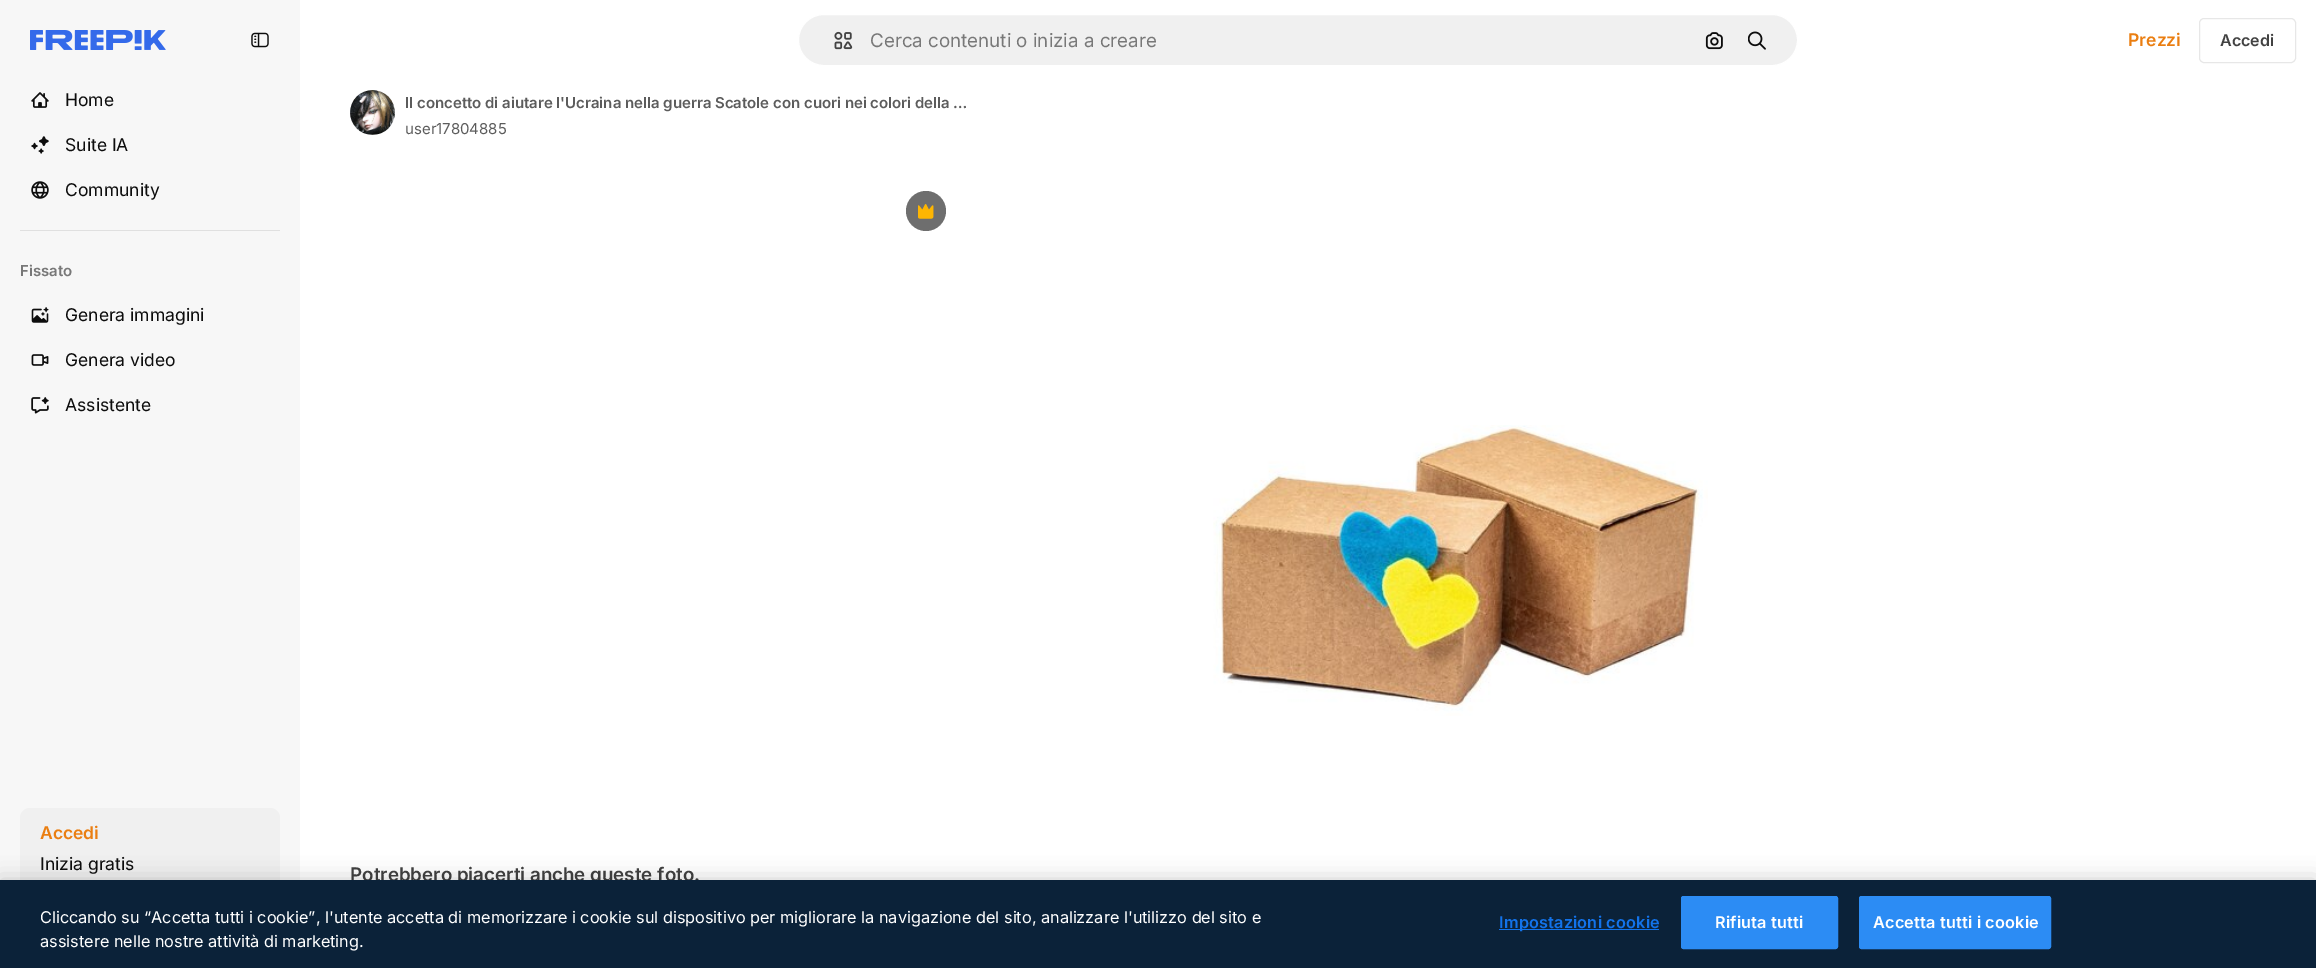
%!PS
<< /PageSize [2316 968] /PageUsesTransparency true >> setpagedevice
/m/moveto load def
/f/fill load def
/s/stroke load def
/q/gsave load def
/Q_/grestore load def
/C { dup -16 bitshift 255 div exch dup -8 bitshift 255 and 255 div exch 255 and 255 div setrgbcolor } def
/F { [ exch dup neg 0 0 3 -1 roll 0 0 ] selectfont } def
/T { moveto show } def
/R { rectfill } def
/A { dup .setfillconstantalpha .setstrokeconstantalpha } def
/O { newpath 0 360 arc closepath } def
/Q { 5 dict begin { /r /h /w /y /x } { exch def } forall
  x r add y moveto x w add y 2 copy h add r arct x w add y h add x 1 index r arct
  x y h add x y r arct x y 2 copy exch w add exch r arct closepath end } def
/S { 12 dict begin { /a /b /q /h /w /y /x } { exch def } forall gsave /was 0 def
  9 -2 -9 { dup b mul 4 div /e exch def 1 sub .425 mul 2.718 exch exp 1 add a .99 .min exch div /now exch def
    1 1 now sub 1 was sub div sub A /was now def
    w h .min e 2 mul add 0 gt { x e sub y e sub w e 2 mul add h e 2 mul add
      q e add b .6 mul add w h .min 2 div e add .min 0 .max Q fill } if } for grestore end } def
/I { 5 dict begin { /h /w /y /x /name } { exch def } forall
  gsave x y translate w h scale
  w h 8 [w 0 0 h 0 0] name (r) file false 3 colorimage grestore end } def
0 .pushpdf14devicefilter
0 968 translate 1 -1 scale
4 setmiterlimit
16#FFFFFF C
0 0 2316 968 R
16#F7F7F7 C
0 0 300 880 R
(1.rgb) 30 30 136 20 I
(2.rgb) 251 32 18 16 I
(3.rgb) 31 92 18 16 I
/Inter-Regular 17.5 F
16#0D0D0D C
(Home) 65 106 T
(4.rgb) 31 136 18 18 I
(Suite IA) 65 151 T
(5.rgb) 31 181 18 18 I
(Community) 65 196 T
16#E0E0E0 C
20 230 260 1 R
/Inter-SemiBold 15 F
16#787878 C
(Fissato) 20 276 T
(6.rgb) 31 307 18 16 I
/Inter-Regular 17.5 F
16#0D0D0D C
(Genera immagini) 65 321 T
(7.rgb) 31 354 18 12 I
(Genera video) 65 366 T
(8.rgb) 31 397 18 17 I
(Assistente) 65 411 T
16#F0F0F0 C
20 808 260 81 10 Q f
/Inter-SemiBold 17.5 F
16#EA7E11 C
(Accedi) 40 839 T
/Inter-Regular 17.5 F
16#0D0D0D C
(Inizia gratis) 40 870 T
16#F0F0F0 C
798.5 14.5 999 51 25.5 Q q f Q_
16#FFFFFF C
s
(9.rgb) 834 31 19 19 I
/Inter-Regular 18.75 F
16#787878 C
(Cerca contenuti o inizia a creare) 870 47 T
(10.rgb) 1705 32 18 18 I
(11.rgb) 1748 31 18 19 I
/Inter-SemiBold 17.5 F
16#EA7E11 C
(Prezzi) 2128 46 T
16#E7E7E7 C
2199.5 18.5 96 44 4.5 Q s
/Inter-SemiBold 16 F
16#424242 C
(Accedi) 2220 46 T
(12.rgb) 350 90 45 45 I
/Inter-SemiBold 15 F
16#5C5C5C C
(Il concetto di aiutare l'Ucraina nella guerra Scatole con cuori nei colori della …) 405 108 T
/Inter-Regular 15 F
(user17804885) 405 134 T
16#6E6E6E C
926 211 20 O f
(13.rgb) 918 204 16 15 I
(14.rgb) 1213 425 495 291 I
/Inter-SemiBold 18.75 F
16#424242 C
(Potrebbero piacerti anche queste foto.) 350 881 T
16#000000 C
0 880 2316 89 0 11 .2 S
16#0B2239 C
0 880 2316 88 R
/Inter-Regular 16.25 F
16#FFFFFF C
(Cliccando su “Accetta tutti i cookie”, l'utente accetta di memorizzare i cookie sul dispositivo per migliorare la navigazione del sito, analizzare l'utilizzo del sito e) 40 923 T
(assistere nelle nostre attività di marketing.) 40 947 T
16#1273EB C
1499 929 160 1 R
/Inter-SemiBold 16.25 F
1499 928 m .2 0 (Impostazioni cookie) ashow
16#2C8CF4 C
1681.5 896.5 156 52 2 Q q f Q_
s
16#FFFFFF C
1715 928 m .2 0 (Rifiuta tutti) ashow
16#2C8CF4 C
1859.5 896.5 191 52 2 Q q f Q_
s
16#FFFFFF C
1873 928 m .2 0 (Accetta tutti i cookie) ashow
.poppdf14devicefilter showpage
